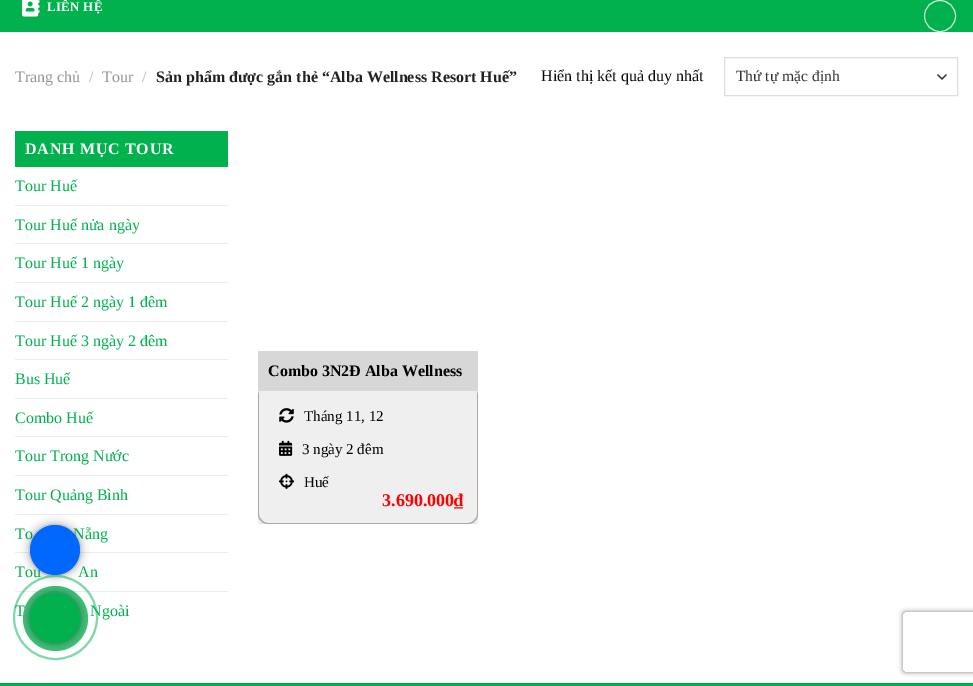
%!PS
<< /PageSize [973 686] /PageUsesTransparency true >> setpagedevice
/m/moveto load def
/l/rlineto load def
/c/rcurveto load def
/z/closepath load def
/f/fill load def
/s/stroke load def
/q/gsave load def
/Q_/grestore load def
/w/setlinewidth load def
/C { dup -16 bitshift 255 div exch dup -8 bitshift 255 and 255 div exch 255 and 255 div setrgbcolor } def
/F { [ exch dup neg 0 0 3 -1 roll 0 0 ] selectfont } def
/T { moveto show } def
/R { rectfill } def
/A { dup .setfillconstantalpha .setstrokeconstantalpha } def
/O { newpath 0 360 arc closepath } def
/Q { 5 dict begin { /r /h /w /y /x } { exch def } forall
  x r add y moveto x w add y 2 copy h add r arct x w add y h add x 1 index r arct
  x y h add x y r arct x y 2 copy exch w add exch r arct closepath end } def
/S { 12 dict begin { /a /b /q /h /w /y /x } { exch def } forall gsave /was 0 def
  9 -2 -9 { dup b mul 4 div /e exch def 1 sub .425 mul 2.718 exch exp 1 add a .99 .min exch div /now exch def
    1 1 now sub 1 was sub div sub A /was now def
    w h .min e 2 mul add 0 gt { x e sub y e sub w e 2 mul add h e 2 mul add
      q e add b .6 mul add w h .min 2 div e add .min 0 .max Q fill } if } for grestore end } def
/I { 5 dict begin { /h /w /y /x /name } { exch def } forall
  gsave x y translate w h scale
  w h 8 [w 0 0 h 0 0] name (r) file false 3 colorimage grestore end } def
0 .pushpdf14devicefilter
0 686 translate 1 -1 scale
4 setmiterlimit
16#FFFFFF C
0 0 973 686 R
16#00B14E C
0 0 973 32 R
(1.rgb) 22 0 18 17 I
/LiberationSerif-Bold 13 F
16#FFFFFF C
47 11 m .25 0 (LIÊN HỆ) ashow
16#CCEFDC C
940 16 15.5 O s
/LiberationSerif-Regular 16 F
16#949494 C
(Trang chủ) 15 82 T
16#B2B2B2 C
(/) 89 82 T
16#949494 C
(Tour) 102 82 T
16#B2B2B2 C
(/) 142 82 T
/LiberationSerif-Bold 16 F
16#222222 C
(Sản phẩm được gắn thẻ “Alba Wellness Resort Huế”) 156 82 T
/LiberationSerif-Regular 16 F
16#0A0A0A C
(Hiển thị kết quả duy nhất) 541 81 T
16#333333 C
1.3 w
1 setlinecap
1 setlinejoin
938 75 m 4 4 l 4 -4 l s
16#DDDDDD C
1 w
0 setlinecap
0 setlinejoin
724.5 57.5 233 38 rectstroke
/LiberationSerif-Regular 15.5 F
16#333333 C
(Thứ tự mặc định) 736 81 T
16#00B14E C
15 131 213 36 R
/LiberationSerif-Bold 16 F
16#FFFFFF C
25 154 m .75 0 (DANH MỤC TOUR) ashow
/LiberationSerif-Regular 16 F
16#00B14E C
(Tour Huế) 15 191 T
16#ECECEC C
15 205 213 1 R
16#00B14E C
(Tour Huế nửa ngày) 15 230 T
16#ECECEC C
15 243 213 1 R
16#00B14E C
(Tour Huế 1 ngày) 15 268 T
16#ECECEC C
15 282 213 1 R
16#00B14E C
(Tour Huế 2 ngày 1 đêm) 15 307 T
16#ECECEC C
15 321 213 1 R
16#00B14E C
(Tour Huế 3 ngày 2 đêm) 15 346 T
16#ECECEC C
15 359 213 1 R
16#00B14E C
(Bus Huế) 15 384 T
16#ECECEC C
15 398 213 1 R
16#00B14E C
(Combo Huế) 15 423 T
16#ECECEC C
15 436 213 1 R
16#00B14E C
(Tour Trong Nước) 15 461 T
16#ECECEC C
15 475 213 1 R
16#00B14E C
(Tour Quảng Bình) 15 500 T
16#ECECEC C
15 514 213 1 R
16#00B14E C
(To) 15 539 T
(Nẵng) 73 539 T
16#ECECEC C
15 552 213 1 R
16#00B14E C
(Tou) 15 577 T
(An) 78 577 T
16#ECECEC C
15 591 213 1 R
16#00B14E C
(T) 15 616 T
(Ngoài) 90 616 T
16#EFEFEF C
258 391 220 133 R
16#D7D7D7 C
258 351 220 40 R
/LiberationSerif-Bold 16 F
16#000000 C
(Combo 3N2Đ Alba Wellness) 268 376 T
16#AFA8A8 C
478 391 m -1 3 l 0 120 l 0 2 -1 5 -3 6 c 1 1 l 2 -1 3 -4 3 -7 c z f
268 524 m 200 0 l 3 0 6 -1 7 -3 c -1 -1 l -1 2 -4 3 -6 3 c -200 0 l -2 0 -5 -1 -6 -3 c -1 1 l 1 2 4 3 7 3 c z f
259 394 m -1 -3 l 0 123 l 0 3 1 6 3 7 c 1 -1 l -2 -1 -3 -4 -3 -6 c z f
(2.rgb) 279 408 15 15 I
/LiberationSerif-Regular 15 F
16#000000 C
(Tháng 11, 12) 304 421 T
(3.rgb) 279 440 14 16 I
(3 ngày 2 đêm) 302 454 T
(4.rgb) 279 473 15 16 I
(Huế) 304 487 T
/LiberationSerif-Bold 18 F
16#FF0000 C
(3.690.000₫) 382 506 T
16#00B14E C
0 684 973 2 R
16#00A84A C
0 683 973 1 R
0.76 A
16#02B14F C
55.5 618.5 32.5 O f
1 A
16#000000 C
32 527 46 46 23 5 .7 S
16#0067FF C
55 550 25 O f
16#000000 C
32 595 46 46 23 5 .7 S
16#00B14E C
55 618 25 O f
0.5 A
16#02B14F C
2 w
55.5 617.5 41.5 O s
q
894 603 m 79 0 l 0 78 l -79 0 l z 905 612 m 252 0 l 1 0 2 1 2 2 c 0 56 l 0 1 -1 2 -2 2 c -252 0 l -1 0 -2 -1 -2 -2 c 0 -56 l 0 -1 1 -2 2 -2 c z eoclip newpath
1 A
16#808080 C
903 612 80 60 2 2.5 1 S
Q_
.poppdf14devicefilter showpage
